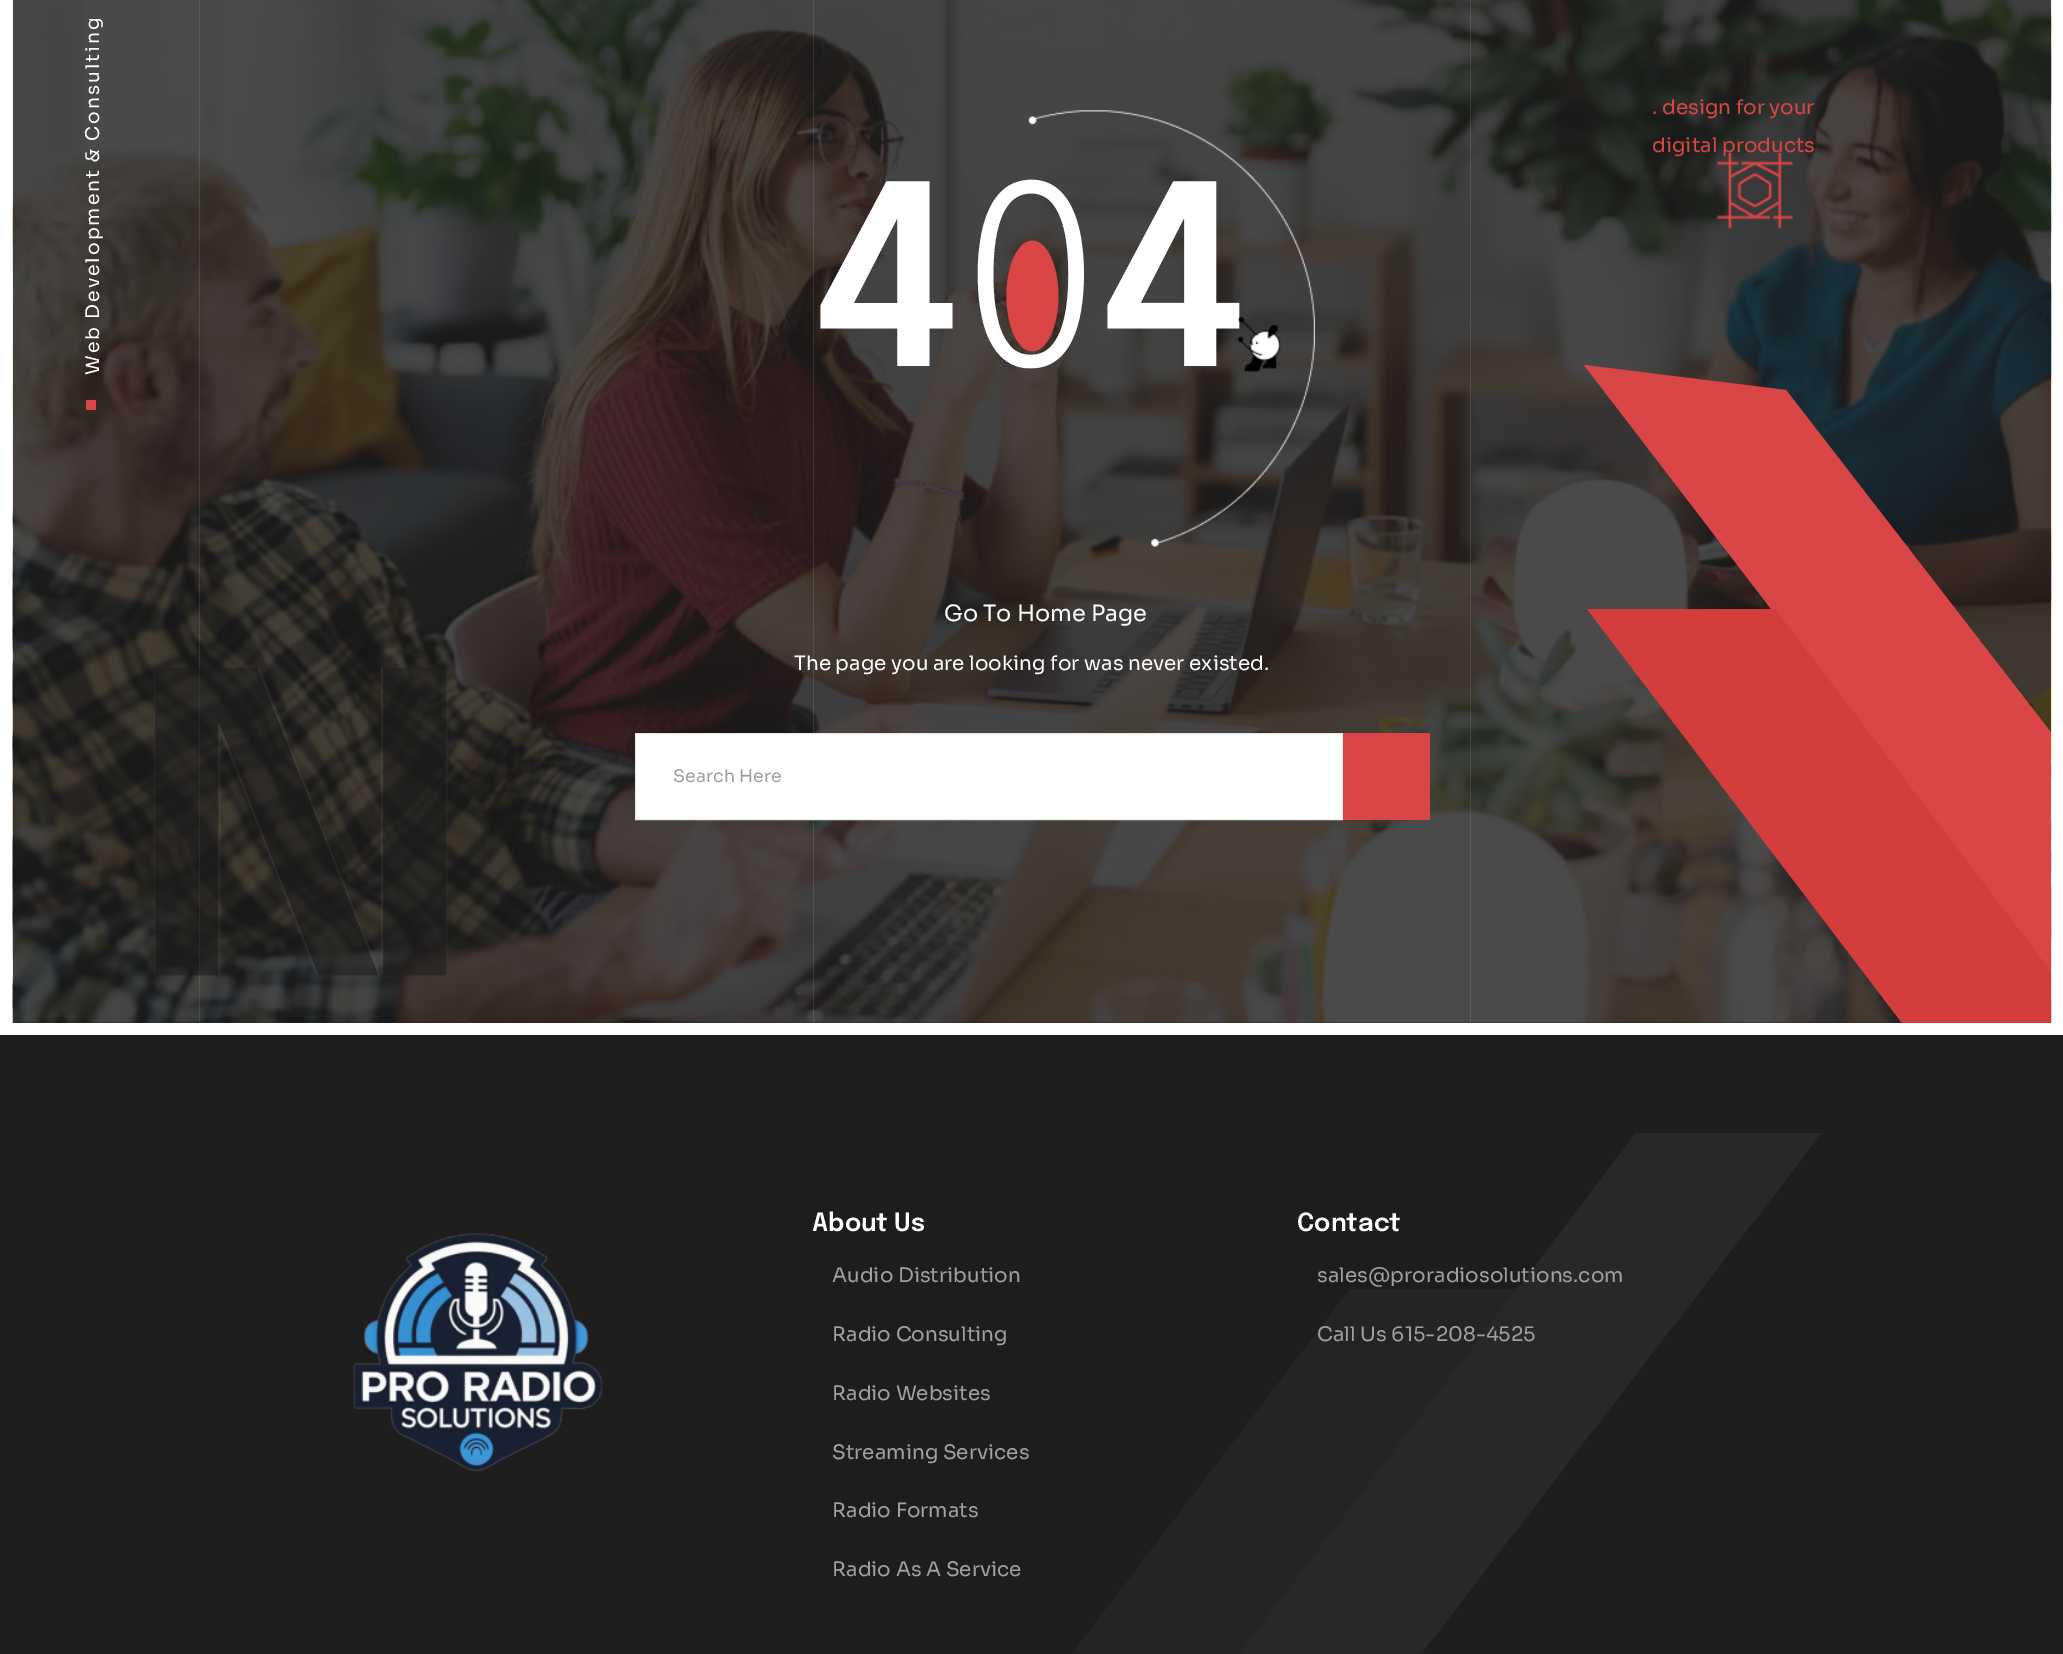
%!PS
<< /PageSize [2063 1654] /PageUsesTransparency true >> setpagedevice
/m/moveto load def
/l/rlineto load def
/c/rcurveto load def
/z/closepath load def
/f/fill load def
/s/stroke load def
/q/gsave load def
/Q_/grestore load def
/C { dup -16 bitshift 255 div exch dup -8 bitshift 255 and 255 div exch 255 and 255 div setrgbcolor } def
/F { [ exch dup neg 0 0 3 -1 roll 0 0 ] selectfont } def
/T { moveto show } def
/R { rectfill } def
/A { dup .setfillconstantalpha .setstrokeconstantalpha } def
/I { 5 dict begin { /h /w /y /x /name } { exch def } forall
  gsave x y translate w h scale
  w h 8 [w 0 0 h 0 0] name (r) file false 3 colorimage grestore end } def
0 .pushpdf14devicefilter
0 1654 translate 1 -1 scale
4 setmiterlimit
16#FFFFFF C
0 0 2063 1654 R
(1.rgb) 12 0 2040 1023 I
/Sora-Regular 18.75 F
q 99 375 translate -90 rotate 0 0 m 2 0 (Web Development & Consulting) ashow Q_
16#D94645 C
86 400 10 10 R
0.1 A
16#FFFFFF C
813 0 1 1023 R
199 0 1 1023 R
1470 0 1 1023 R
/Sora-Regular 20 F
1 A
16#D94645 C
(. design for your) 1652 114 T
(digital products) 1652 152 T
(2.rgb) 1717 152 76 76 I
/Epilogue-Light 250 F
16#FFFFFF C
(0) 962 366 T
16#D94645 C
1032.5 240.5 m 14.5 0 26 25 26 55.5 c 0 30.5 -11.5 55.5 -26 55.5 c -14.5 0 -26 -25 -26 -55.5 c 0 -30.5 11.5 -55.5 26 -55.5 c z f
/Epilogue-SemiBold 250 F
16#FFFFFF C
(4) 1102 366 T
(4.rgb) 1237 316 44 56 I
(3.rgb) 1028 110 287 437 I
(4) 815 366 T
/Sora-Regular 22.5 F
(Go To Home Page) 944 621 T
/Sora-Regular 20 F
(The page you are looking for was never existed.) 794 670 T
635.5 733.5 m 707 0 l 0 86 l -707 0 l z q f Q_
16#ECEAE0 C
s
/Sora-Regular 17.5 F
16#A0A1A6 C
(Search Here) 673 782 T
16#D94645 C
1343 733 87 87 R
(5.rgb) 154 667 294 309 I
q
1584 365 467 658 rectclip
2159 1115 m -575 -750 l 202 25 l 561 725 l z f
16#D33D3C C
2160 1115 m -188 0 l -385 -506 l 188 0 l z f
Q_
16#1D1D1D C
0 1035 2063 619 R
16#242424 C
1517 1289 m -167 0 l -490 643 l 170 -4 l z f
q
860 1133 991 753 rectclip
16#282828 C
1665 1095 m -745 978 l 179 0 l 752 -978 l z f
Q_
(6.rgb) 353 1233 250 239 I
/Epilogue-SemiBold 25 F
16#FFFFFF C
(About Us) 812 1231 T
/Sora-Regular 20 F
16#A0A1A6 C
(Audio Distribution) 832 1282 T
(Radio Consulting) 832 1341 T
(Radio Websites) 832 1400 T
(Streaming Services) 832 1459 T
(Radio Formats) 832 1517 T
(Radio As A Service) 832 1576 T
/Epilogue-SemiBold 25 F
16#FFFFFF C
(Contact) 1297 1231 T
/Sora-Regular 20 F
16#A0A1A6 C
(sales@proradiosolutions.com) 1317 1282 T
(Call Us 615-208-4525) 1317 1341 T
.poppdf14devicefilter showpage
